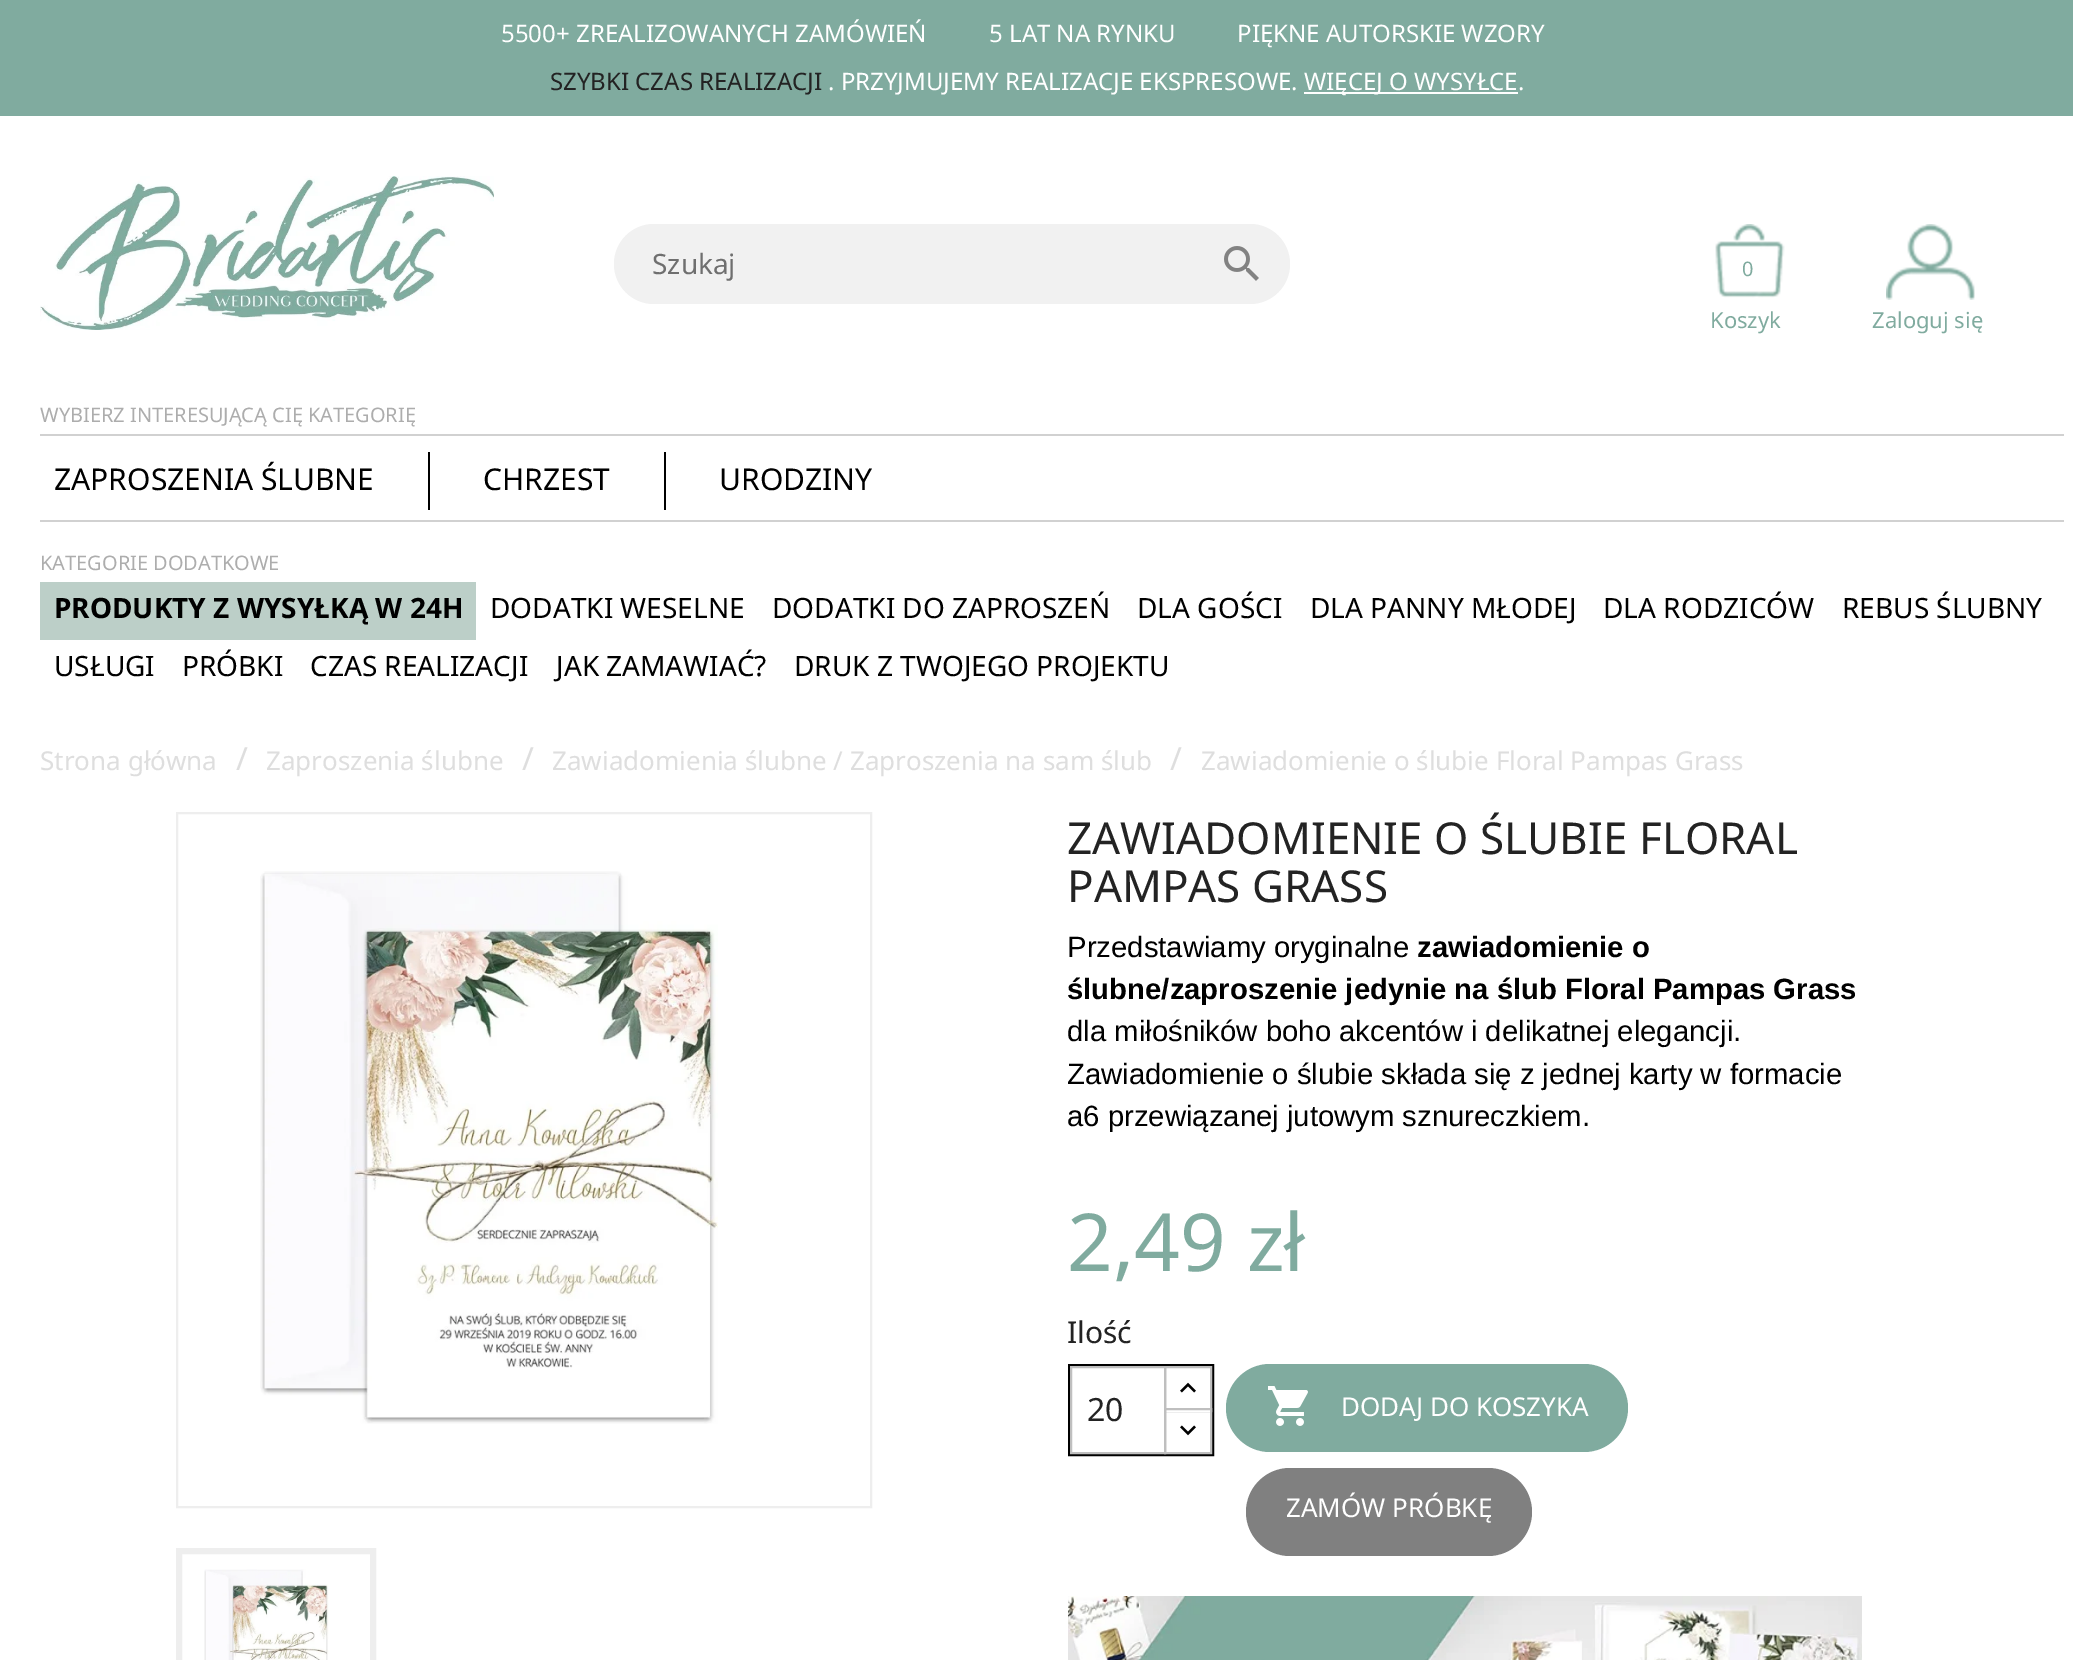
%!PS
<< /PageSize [2073 1660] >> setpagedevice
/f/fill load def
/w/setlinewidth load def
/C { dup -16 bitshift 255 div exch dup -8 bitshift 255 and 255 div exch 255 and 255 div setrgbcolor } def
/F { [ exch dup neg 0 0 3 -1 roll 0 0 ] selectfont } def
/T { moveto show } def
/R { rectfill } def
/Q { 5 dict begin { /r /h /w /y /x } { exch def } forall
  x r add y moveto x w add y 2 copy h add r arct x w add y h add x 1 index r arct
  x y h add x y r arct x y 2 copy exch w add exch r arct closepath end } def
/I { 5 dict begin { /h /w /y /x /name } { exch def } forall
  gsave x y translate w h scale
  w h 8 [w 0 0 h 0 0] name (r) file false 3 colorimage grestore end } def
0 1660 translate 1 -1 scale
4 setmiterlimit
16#FFFFFF C
0 0 2073 1660 R
16#80AB9F C
0 0 2073 116 R
/NotoSans-Regular 24 F
16#FFFFFF C
(5500+ ZREALIZOWANYCH ZAMÓWIEŃ) 501 42 T
(5 LAT NA RYNKU) 989 42 T
(PIĘKNE AUTORSKIE WZORY) 1237 42 T
16#232323 C
(SZYBKI CZAS REALIZACJI) 550 90 T
16#FFFFFF C
(. PRZYJMUJEMY REALIZACJE EKSPRESOWE.) 828 90 T
1304 92 214 2 R
(WIĘCEJ O WYSYŁCE.) 1304 90 T
(1.rgb) 40 176 454 154 I
16#F1F1F1 C
614 224 676 80 40 Q f
/NotoSans-Regular 28 F
16#6F6F6F C
(Szukaj) 652 274 T
(2.rgb) 1224 246 35 35 I
(3.rgb) 1715 224 70 74 I
/NotoSans-Regular 20 F
16#80AB9F C
(0) 1742 276 T
/NotoSans-Regular 22 F
(Koszyk) 1710 328 T
(4.rgb) 1886 224 89 76 I
(Zaloguj się) 1872 328 T
/NotoSans-Regular 20 F
16#ADADAD C
(WYBIERZ INTERESUJĄCĄ CIĘ KATEGORIĘ) 40 422 T
16#D1D1D1 C
40 434 2024 2 R
40 520 2024 2 R
16#000000 C
428 452 2 58 R
/NotoSans-Regular 30 F
(ZAPROSZENIA ŚLUBNE) 54 490 T
664 452 2 58 R
(CHRZEST) 483 490 T
(URODZINY) 719 490 T
/NotoSans-Regular 20 F
16#ADADAD C
(KATEGORIE DODATKOWE) 40 570 T
16#BCCFC8 C
40 582 436 58 R
/NotoSans-Bold 28 F
16#000000 C
(PRODUKTY Z WYSYŁKĄ W 24H) 54 618 T
/NotoSans-Regular 28 F
(DODATKI WESELNE) 490 618 T
(DODATKI DO ZAPROSZEŃ) 772 618 T
(DLA GOŚCI) 1137 618 T
(DLA PANNY MŁODEJ) 1310 618 T
(DLA RODZICÓW) 1603 618 T
(REBUS ŚLUBNY) 1842 618 T
(USŁUGI) 54 676 T
(PRÓBKI) 182 676 T
(CZAS REALIZACJI) 310 676 T
(JAK ZAMAWIAĆ?) 556 676 T
(DRUK Z TWOJEGO PROJEKTU) 794 676 T
/NotoSans-Regular 26 F
16#DEDEDE C
(Strona główna) 40 770 T
/NotoSans-Regular 32 F
(/) 236 770 T
/NotoSans-Regular 26 F
(Zaproszenia ślubne) 266 770 T
/NotoSans-Regular 32 F
(/) 522 770 T
/NotoSans-Regular 26 F
(Zawiadomienia ślubne / Zaproszenia na sam ślub) 552 770 T
/NotoSans-Regular 32 F
(/) 1170 770 T
/NotoSans-Regular 26 F
(Zawiadomienie o ślubie Floral Pampas Grass) 1201 770 T
16#EEEEEE C
2 w
177 813 694 694 rectstroke
(5.rgb) 260 871 458 553 I
6 w
179 1551 194 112 rectstroke
(6.rgb) 204 1569 125 91 I
/NotoSans-Regular 44 F
16#232323 C
(ZAWIADOMIENIE O ŚLUBIE FLORAL) 1067 854 T
(PAMPAS GRASS) 1067 902 T
/LiberationSans-Regular 29.3 F
16#000000 C
(Przedstawiamy oryginalne) 1067 957 T
/LiberationSans-Bold 29.3 F
(zawiadomienie o) 1417 957 T
(ślubne/zaproszenie jedynie na ślub) 1067 999 T
(Floral Pampas Grass) 1565 999 T
/LiberationSans-Regular 29.3 F
(dla miłośników boho akcentów i delikatnej elegancji.) 1067 1041 T
(Zawiadomienie o ślubie składa się z jednej karty w formacie) 1067 1084 T
(a6 przewiązanej jutowym sznureczkiem.) 1067 1126 T
/NotoSans-Regular 80 F
16#80AB9F C
(2,49 zł) 1067 1271 T
/NotoSans-Regular 30 F
16#232323 C
(Ilość) 1067 1343 T
16#000000 C
2 w
1069 1365 144 90 rectstroke
16#BFBFBF C
1165 1367 46 44 rectstroke
16#FFFFFF C
1166 1410 44 2 R
16#BFBFBF C
1165 1409 46 44 rectstroke
1071 1367 94 86 rectstroke
/NotoSans-Regular 32 F
16#232323 C
(20) 1087 1421 T
(7.rgb) 1180 1382 16 11 I
(8.rgb) 1180 1425 16 11 I
16#80AB9F C
1226 1364 402 88 44 Q f
(9.rgb) 1268 1386 40 40 I
/NotoSans-Regular 26 F
16#FFFFFF C
(DODAJ DO KOSZYKA) 1341 1416 T
16#808080 C
1246 1468 286 88 44 Q f
16#FFFFFF C
(ZAMÓW PRÓBKĘ) 1286 1517 T
(10.rgb) 1068 1596 794 64 I
showpage
